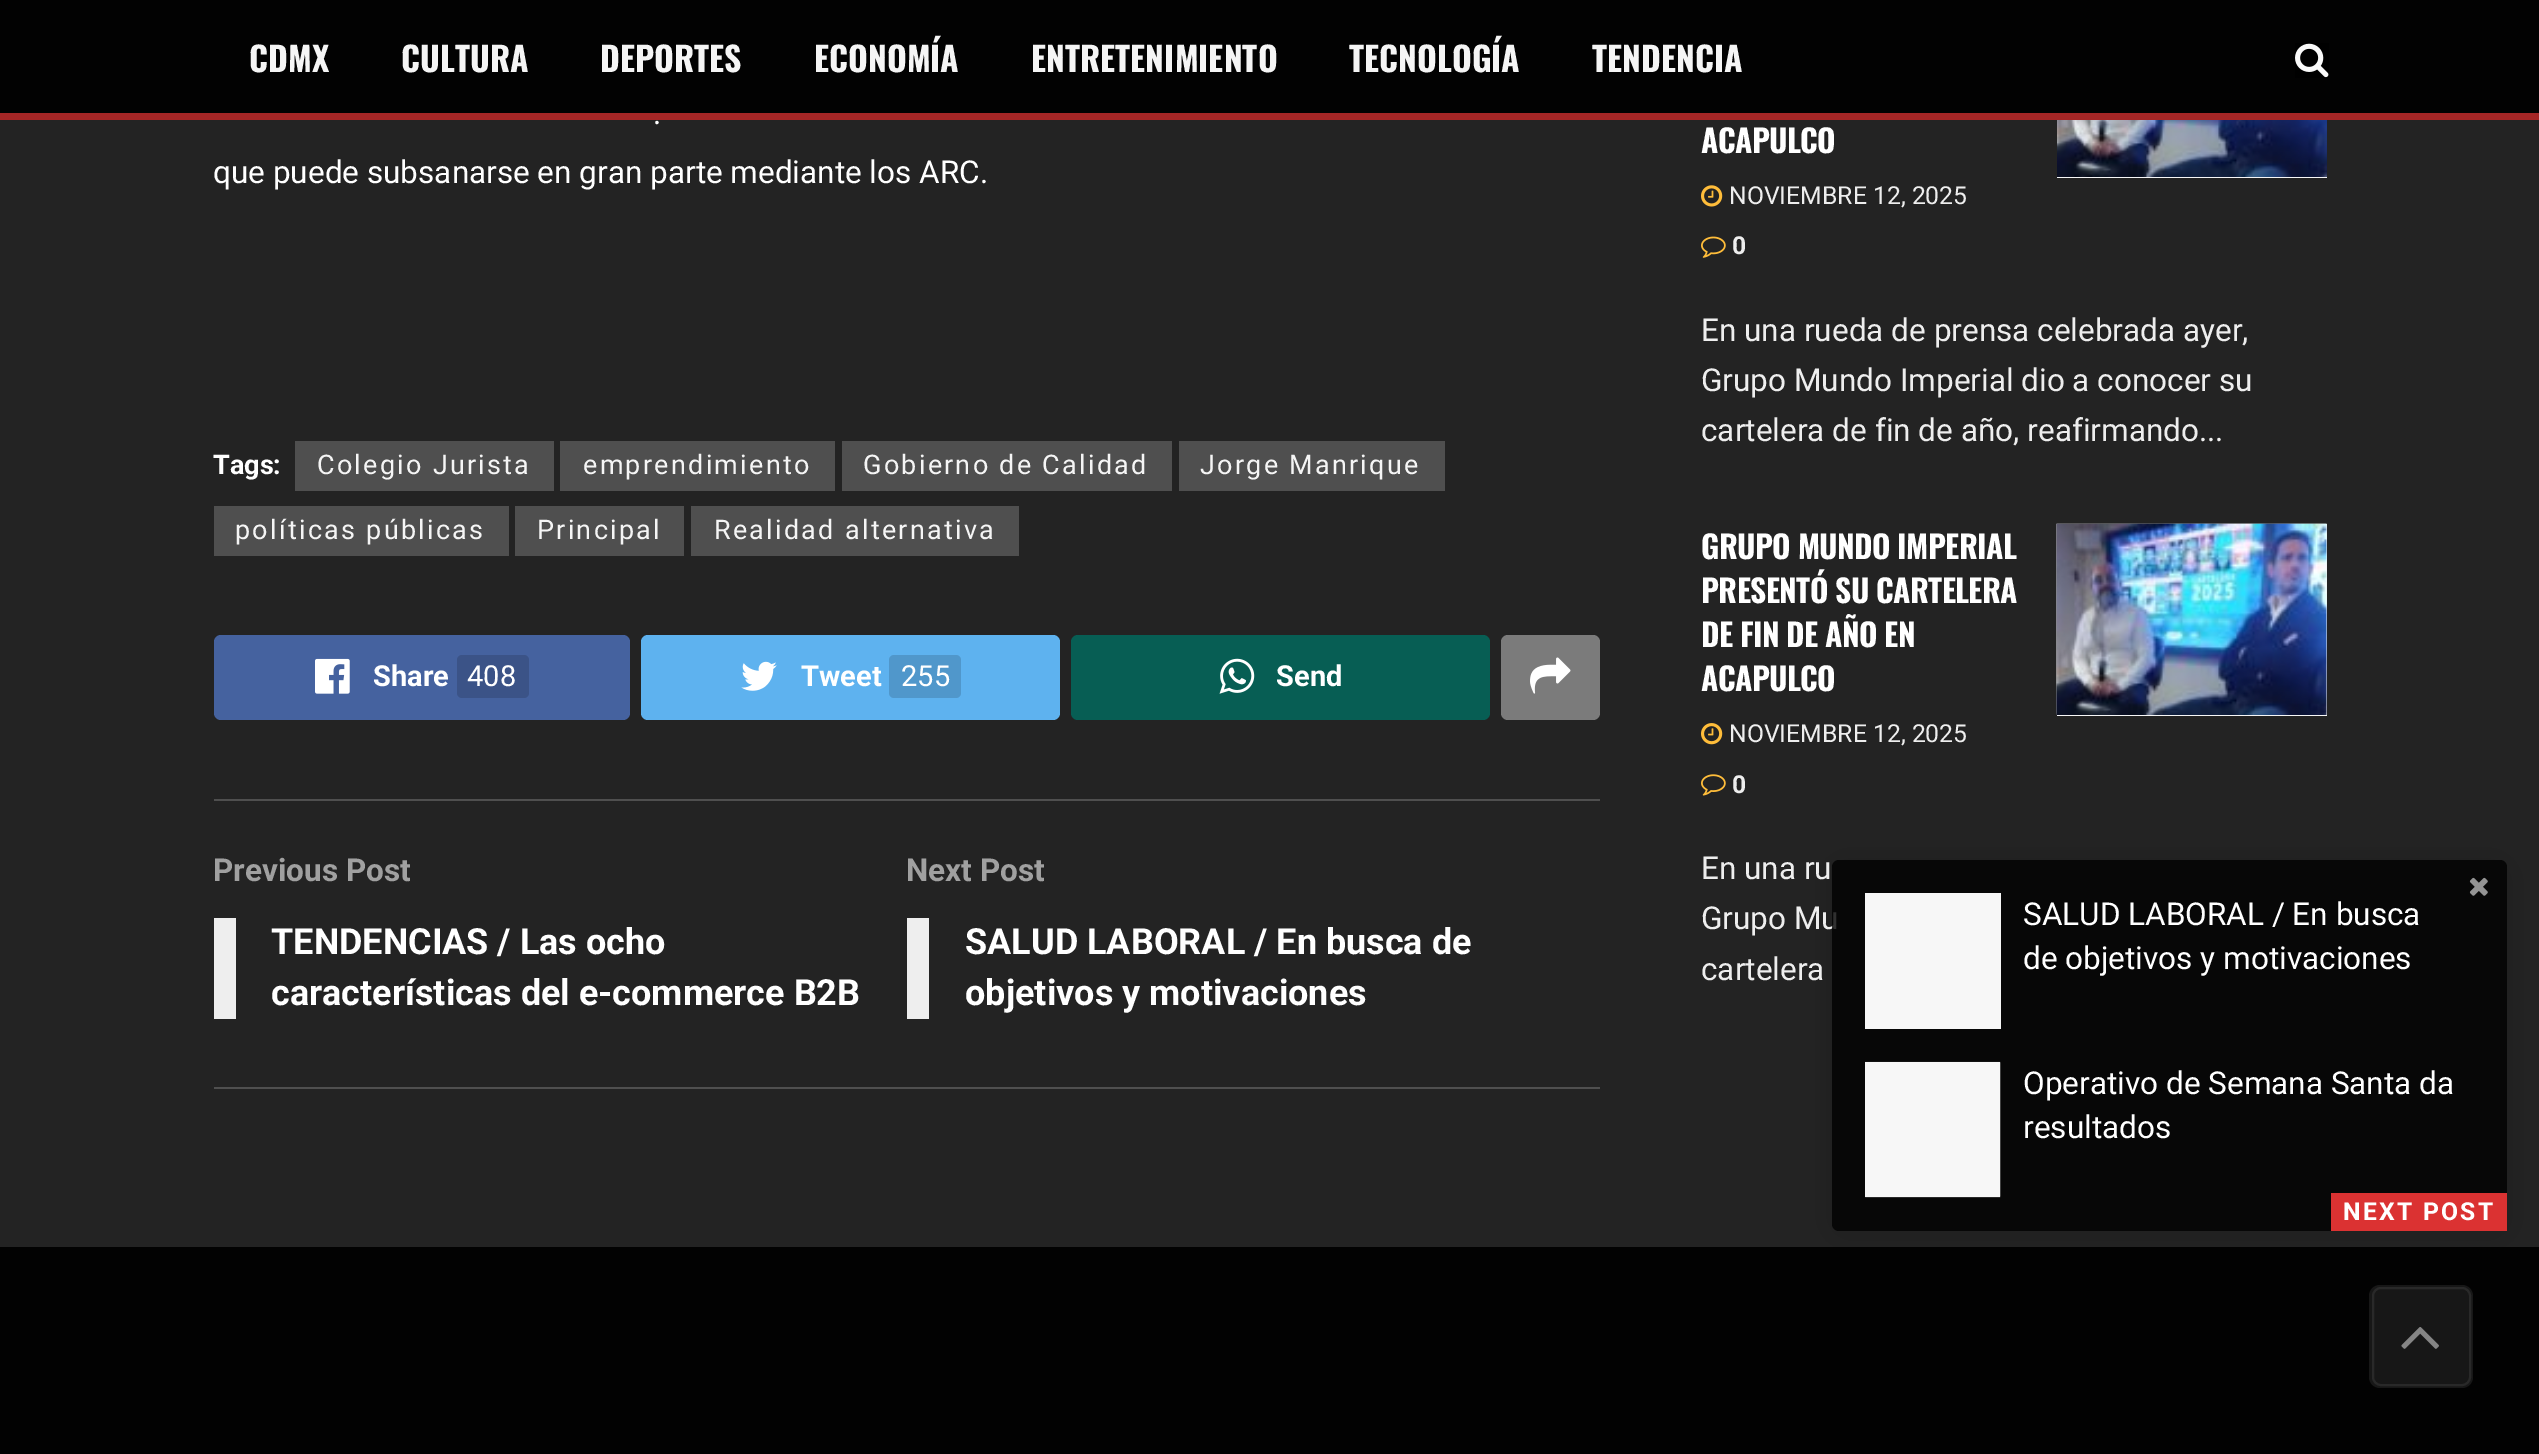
%!PS
<< /PageSize [2539 1454] /PageUsesTransparency true >> setpagedevice
/m/moveto load def
/l/rlineto load def
/c/rcurveto load def
/z/closepath load def
/f/fill load def
/s/stroke load def
/q/gsave load def
/Q_/grestore load def
/w/setlinewidth load def
/C { dup -16 bitshift 255 div exch dup -8 bitshift 255 and 255 div exch 255 and 255 div setrgbcolor } def
/F { [ exch dup neg 0 0 3 -1 roll 0 0 ] selectfont } def
/T { moveto show } def
/R { rectfill } def
/A { dup .setfillconstantalpha .setstrokeconstantalpha } def
/Q { 5 dict begin { /r /h /w /y /x } { exch def } forall
  x r add y moveto x w add y 2 copy h add r arct x w add y h add x 1 index r arct
  x y h add x y r arct x y 2 copy exch w add exch r arct closepath end } def
/S { 12 dict begin { /a /b /q /h /w /y /x } { exch def } forall gsave /was 0 def
  9 -2 -9 { dup b mul 4 div /e exch def 1 sub .425 mul 2.718 exch exp 1 add a .99 .min exch div /now exch def
    1 1 now sub 1 was sub div sub A /was now def
    w h .min e 2 mul add 0 gt { x e sub y e sub w e 2 mul add h e 2 mul add
      q e add b .6 mul add w h .min 2 div e add .min 0 .max Q fill } if } for grestore end } def
/I { 5 dict begin { /h /w /y /x /name } { exch def } forall
  gsave x y translate w h scale
  w h 8 [w 0 0 h 0 0] name (r) file false 3 colorimage grestore end } def
0 .pushpdf14devicefilter
0 1454 translate 1 -1 scale
4 setmiterlimit
16#020202 C
0 0 2539 1454 R
16#A52626 C
0 113 2539 7 R
/Oswald-Bold 33.75 F
16#F5F5F5 C
(CDMX) 249 72 T
(CULTURA) 401 72 T
(DEPORTES) 600 72 T
(ECONOMÍA) 814 72 T
(ENTRETENIMIENTO) 1031 72 T
(TECNOLOGÍA) 1349 72 T
(TENDENCIA) 1592 72 T
(1.rgb) 2295 43 34 35 I
16#232323 C
0 120 2539 1127 R
/Roboto-Regular 31.5 F
16#FFFFFF C
(.) 653 124 T
(que puede subsanarse en gran parte mediante los ARC.) 213 183 T
/Roboto-Bold 27 F
(Tags:) 213 474 T
16#4F4F4F C
295 441 259 50 R
/Roboto-Regular 27 F
16#F5F5F5 C
317 474 m 2.25 0 (Colegio Jurista) ashow
16#4F4F4F C
560 441 275 50 R
16#F5F5F5 C
583 474 m 2.25 0 (emprendimiento) ashow
16#4F4F4F C
842 441 330 50 R
16#F5F5F5 C
863 474 m 2.25 0 (Gobierno de Calidad) ashow
16#4F4F4F C
1179 441 266 50 R
16#F5F5F5 C
1200 474 m 2.25 0 (Jorge Manrique) ashow
16#4F4F4F C
214 506 295 50 R
16#F5F5F5 C
235 539 m 2.25 0 (políticas públicas) ashow
16#4F4F4F C
515 506 169 50 R
16#F5F5F5 C
537 539 m 2.25 0 (Principal) ashow
16#4F4F4F C
691 506 328 50 R
16#F5F5F5 C
714 539 m 2.25 0 (Realidad alternativa) ashow
16#45629F C
214 635 416 85 7 Q f
(2.rgb) 315 658 35 36 I
/Roboto-Bold 29 F
16#FFFFFF C
(Share) 373 686 T
16#3B5387 C
457 655 72 43 5 Q f
/Roboto-Regular 29 F
16#FFFFFF C
(408) 467 686 T
16#5EB2EF C
641 635 419 85 7 Q f
(3.rgb) 741 661 36 30 I
/Roboto-Bold 29 F
16#FFFFFF C
(Tweet) 801 686 T
16#5097CB C
889 655 72 43 5 Q f
/Roboto-Regular 29 F
16#FFFFFF C
(255) 901 686 T
16#075E54 C
1071 635 419 85 7 Q f
(4.rgb) 1219 658 36 36 I
/Roboto-Bold 29 F
16#FFFFFF C
(Send) 1276 686 T
16#7B7B7B C
1501 635 99 85 7 Q f
(5.rgb) 1530 657 41 37 I
16#4F4F4F C
214 799 1386 2 R
214 1087 1386 2 R
/Roboto-Bold 31.5 F
16#A0A0A0 C
(Previous Post) 213 881 T
16#EEEEEE C
214 918 22 101 R
/Roboto-Bold 36 F
16#FFFFFF C
(TENDENCIAS / Las ocho) 271 954 T
(características del e-commerce B2B) 271 1005 T
/Roboto-Bold 31.5 F
16#A0A0A0 C
(Next Post) 906 881 T
16#EEEEEE C
907 918 22 101 R
/Roboto-Bold 36 F
16#FFFFFF C
(SALUD LABORAL / En busca de) 965 954 T
(objetivos y motivaciones) 965 1005 T
q
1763 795 m 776 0 l 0 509 l -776 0 l z 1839 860 m 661 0 l 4 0 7 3 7 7 c 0 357 l 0 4 -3 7 -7 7 c -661 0 l -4 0 -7 -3 -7 -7 c 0 -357 l 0 -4 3 -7 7 -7 c z eoclip newpath
16#000000 C
1832 864 675 371 7 22.5 .15 S
Q_
/Roboto-Regular 31.5 F
16#EEEEEE C
(Grupo Mu) 1701 929 T
0.8 A
16#000000 C
1832 860 675 371 7 Q f
1 A
(6.rgb) 2469 877 19 19 I
16#F7F7F7 C
1865 893 136 136 R
16#FFFFFF C
(SALUD LABORAL / En busca) 2023 925 T
(de objetivos y motivaciones) 2023 969 T
16#F7F7F7 C
1865 1062 135 135 R
(7.rgb) 1865 1061 136 137 I
16#FFFFFF C
(Operativo de Semana Santa da) 2023 1094 T
(resultados) 2023 1138 T
16#DB3232 C
2331 1193 176 38 R
/Roboto-Bold 24.75 F
16#FFFFFF C
2343 1220 m 2.25 0 (NEXT POST) ashow
(8.rgb) 2057 120 270 57 I
16#F7F7F7 C
2057 177 270 1 R
/Oswald-Bold 31.5 F
16#FFFFFF C
1701 153 m -.6 0 (ACAPULCO) ashow
(9.rgb) 1701 185 22 22 I
/Roboto-Regular 24.75 F
16#EEEEEE C
(NOVIEMBRE 12, 2025) 1729 204 T
(10.rgb) 1701 236 25 22 I
/Roboto-Bold 24.75 F
(0) 1732 254 T
/Roboto-Regular 31.5 F
(En una rueda de prensa celebrada ayer,) 1701 341 T
(Grupo Mundo Imperial dio a conocer su) 1701 391 T
(cartelera de fin de año, reafirmando...) 1701 441 T
/Oswald-Bold 31.5 F
16#FFFFFF C
1701 559 m -.6 0 (GRUPO MUNDO IMPERIAL) ashow
1701 603 m -.6 0 (PRESENTÓ SU CARTELERA) ashow
1701 647 m -.6 0 (DE FIN DE AÑO EN) ashow
1701 691 m -.6 0 (ACAPULCO) ashow
(11.rgb) 1701 723 22 22 I
/Roboto-Regular 24.75 F
16#EEEEEE C
(NOVIEMBRE 12, 2025) 1729 742 T
(12.rgb) 1701 774 25 22 I
/Roboto-Bold 24.75 F
(0) 1732 793 T
/Roboto-Regular 31.5 F
(En una ru) 1701 879 T
(cartelera) 1701 980 T
16#F7F7F7 C
2057 524 270 192 R
(13.rgb) 2056 523 271 192 I
(14.rgb) 2056 523 271 192 I
16#171717 C
2369 1285 104 103 11 Q f
16#292929 C
2 w
2373 1288 97 97 8 Q s
(15.rgb) 2401 1327 38 22 I
.poppdf14devicefilter showpage
